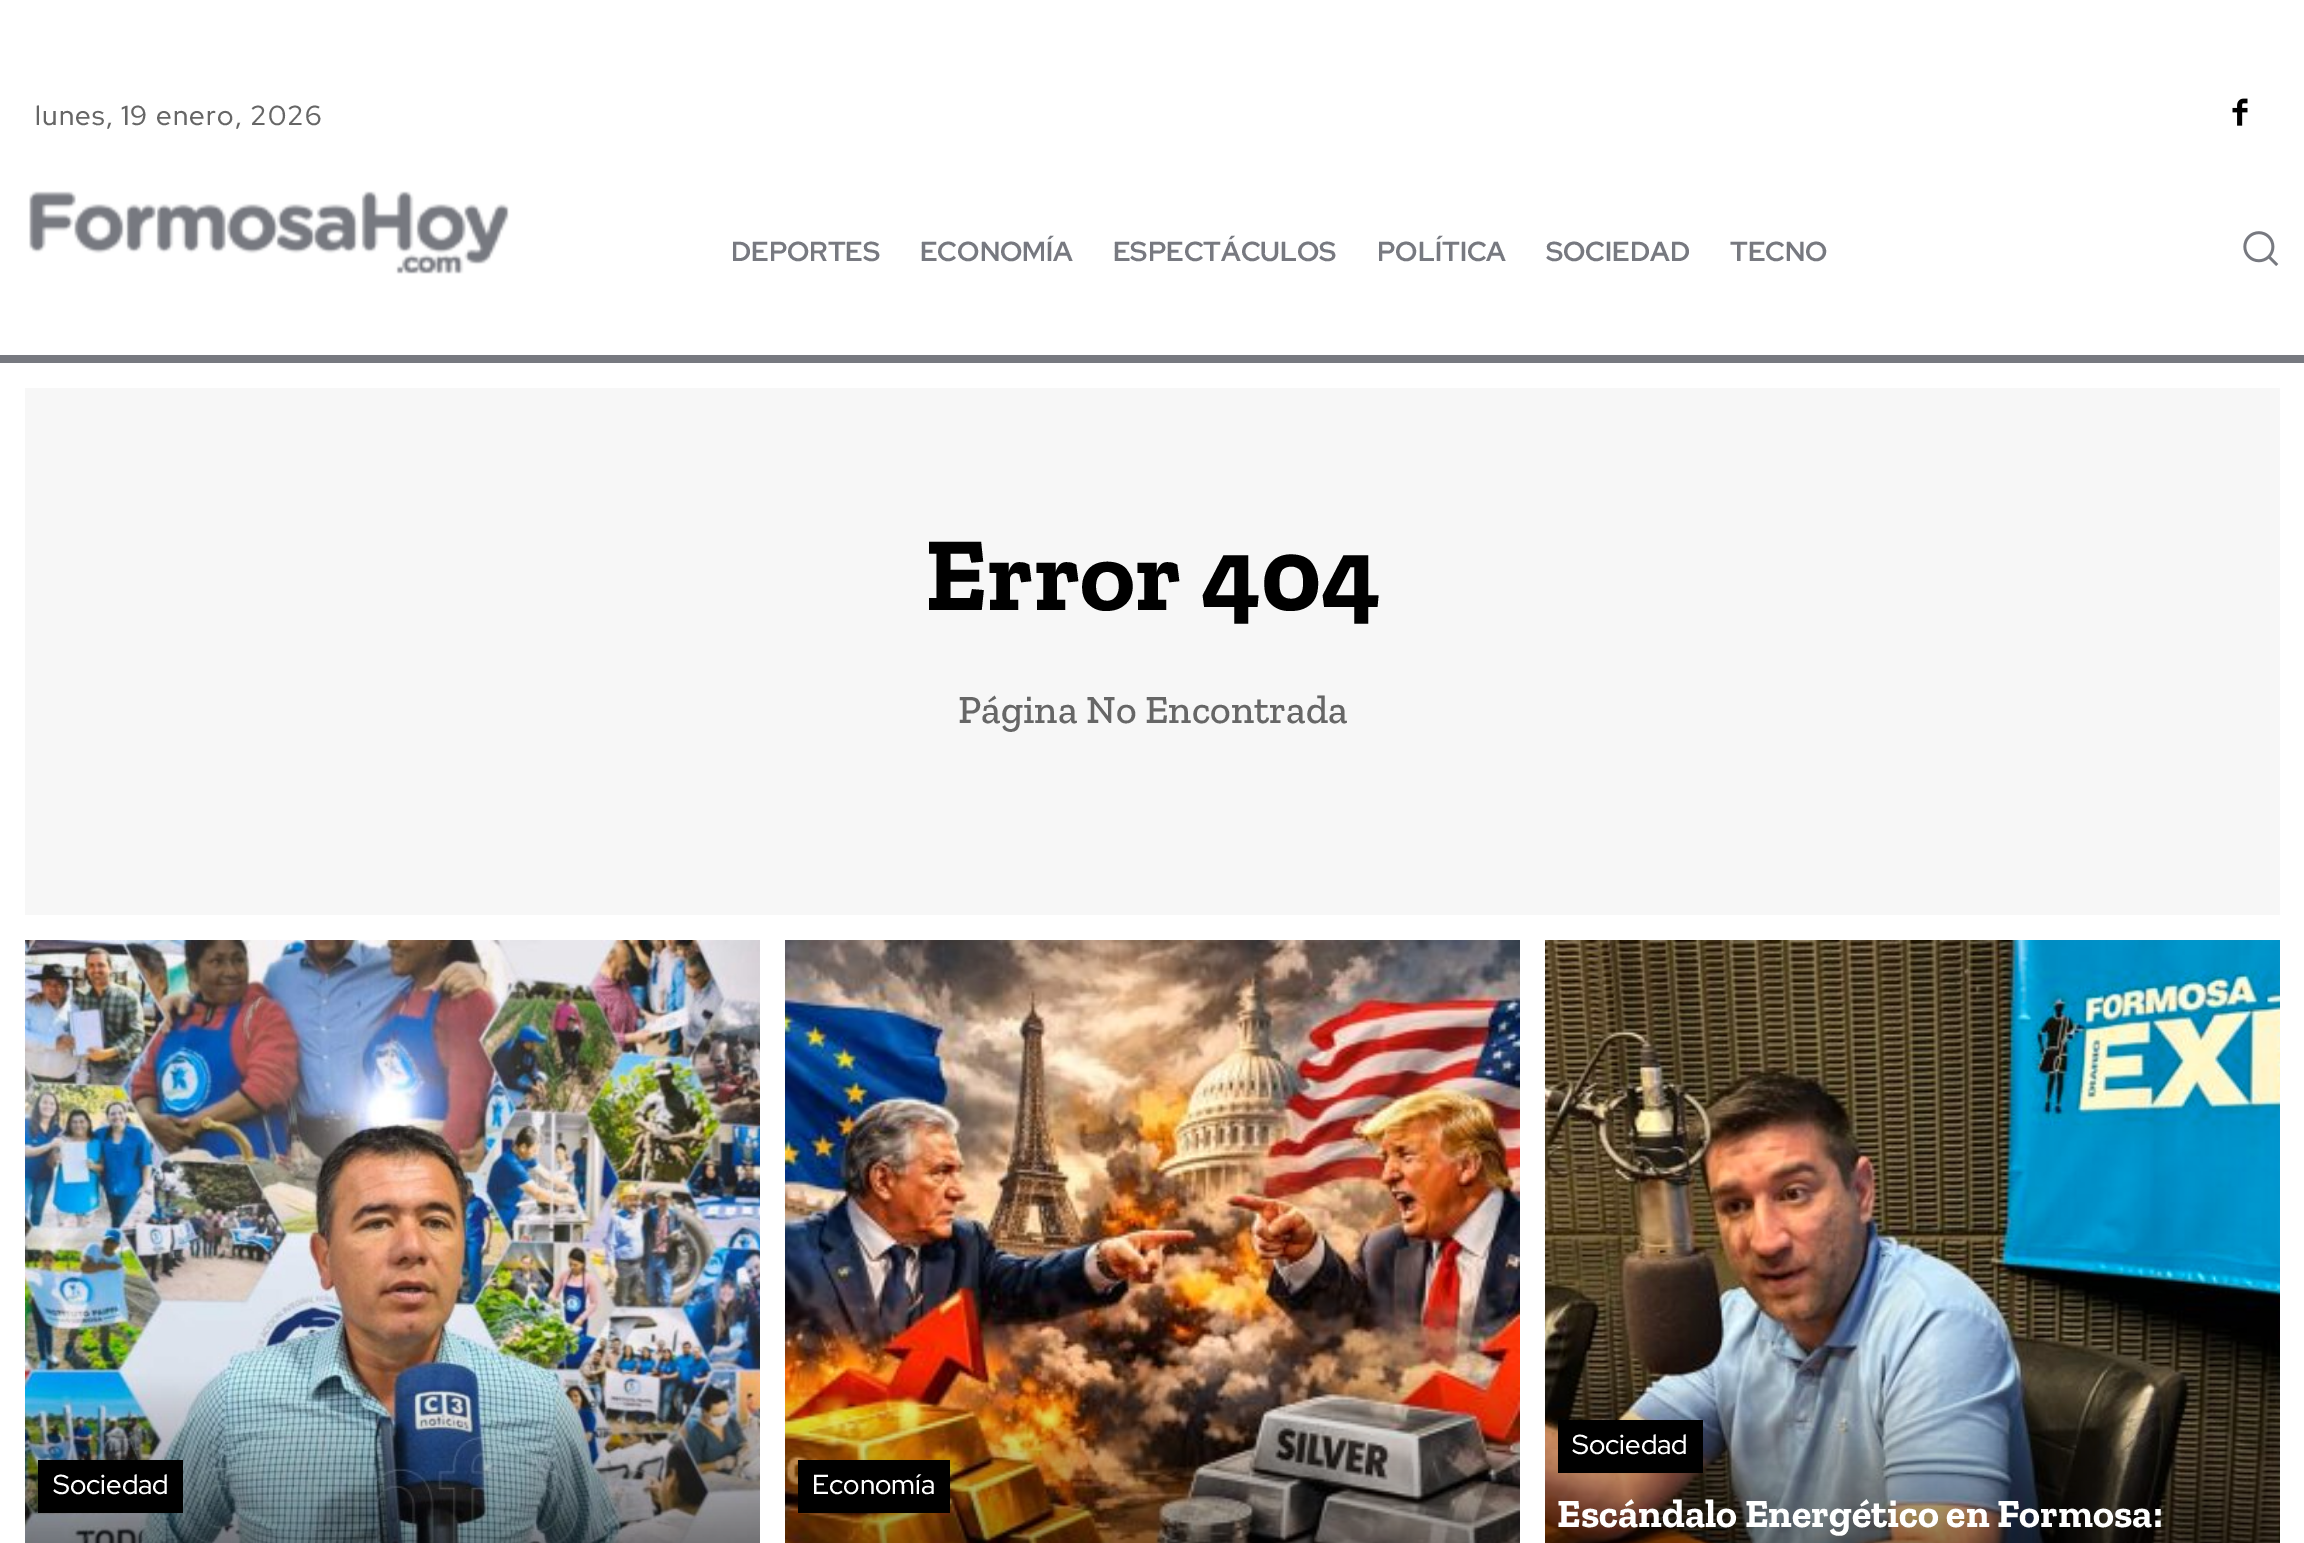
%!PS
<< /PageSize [2304 1543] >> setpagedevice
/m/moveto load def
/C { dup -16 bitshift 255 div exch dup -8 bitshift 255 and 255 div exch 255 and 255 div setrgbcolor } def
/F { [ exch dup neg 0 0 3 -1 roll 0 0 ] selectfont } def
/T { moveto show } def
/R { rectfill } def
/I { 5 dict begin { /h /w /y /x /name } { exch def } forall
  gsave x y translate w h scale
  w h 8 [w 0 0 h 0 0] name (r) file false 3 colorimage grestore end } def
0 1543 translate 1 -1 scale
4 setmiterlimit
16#FFFFFF C
0 0 2304 1543 R
/RedHatDisplay-Medium 27.5 F
16#666666 C
35 125 m 1.25 0 (lunes, 19 enero, 2026) ashow
(1.rgb) 2232 98 16 28 I
(2.rgb) 29 191 480 83 I
/RedHatDisplay-Bold 27.5 F
16#777980 C
(DEPORTES) 731 261 T
(ECONOMÍA) 920 261 T
(ESPECTÁCULOS) 1113 261 T
(POLÍTICA) 1377 261 T
(SOCIEDAD) 1546 261 T
(TECNO) 1730 261 T
(3.rgb) 2243 231 36 35 I
0 355 2304 8 R
16#F7F7F7 C
25 388 2255 527 R
/ZillaSlab-Bold 105 F
16#000000 C
(Error 404) 925 610 T
/ZillaSlab-Medium 40 F
16#666666 C
(Página No Encontrada) 958 723 T
(4.rgb) 25 940 735 603 I
16#000000 C
38 1460 145 53 R
/RedHatDisplay-Medium 27.5 F
16#FFFFFF C
(Sociedad) 53 1494 T
(5.rgb) 785 940 735 603 I
16#000000 C
798 1460 152 53 R
16#FFFFFF C
(Economía) 812 1494 T
(6.rgb) 1545 940 735 603 I
16#000000 C
1558 1420 145 53 R
16#FFFFFF C
(Sociedad) 1572 1454 T
/ZillaSlab-Bold 40 F
(Escándalo Energético en Formosa:) 1557 1527 T
showpage
